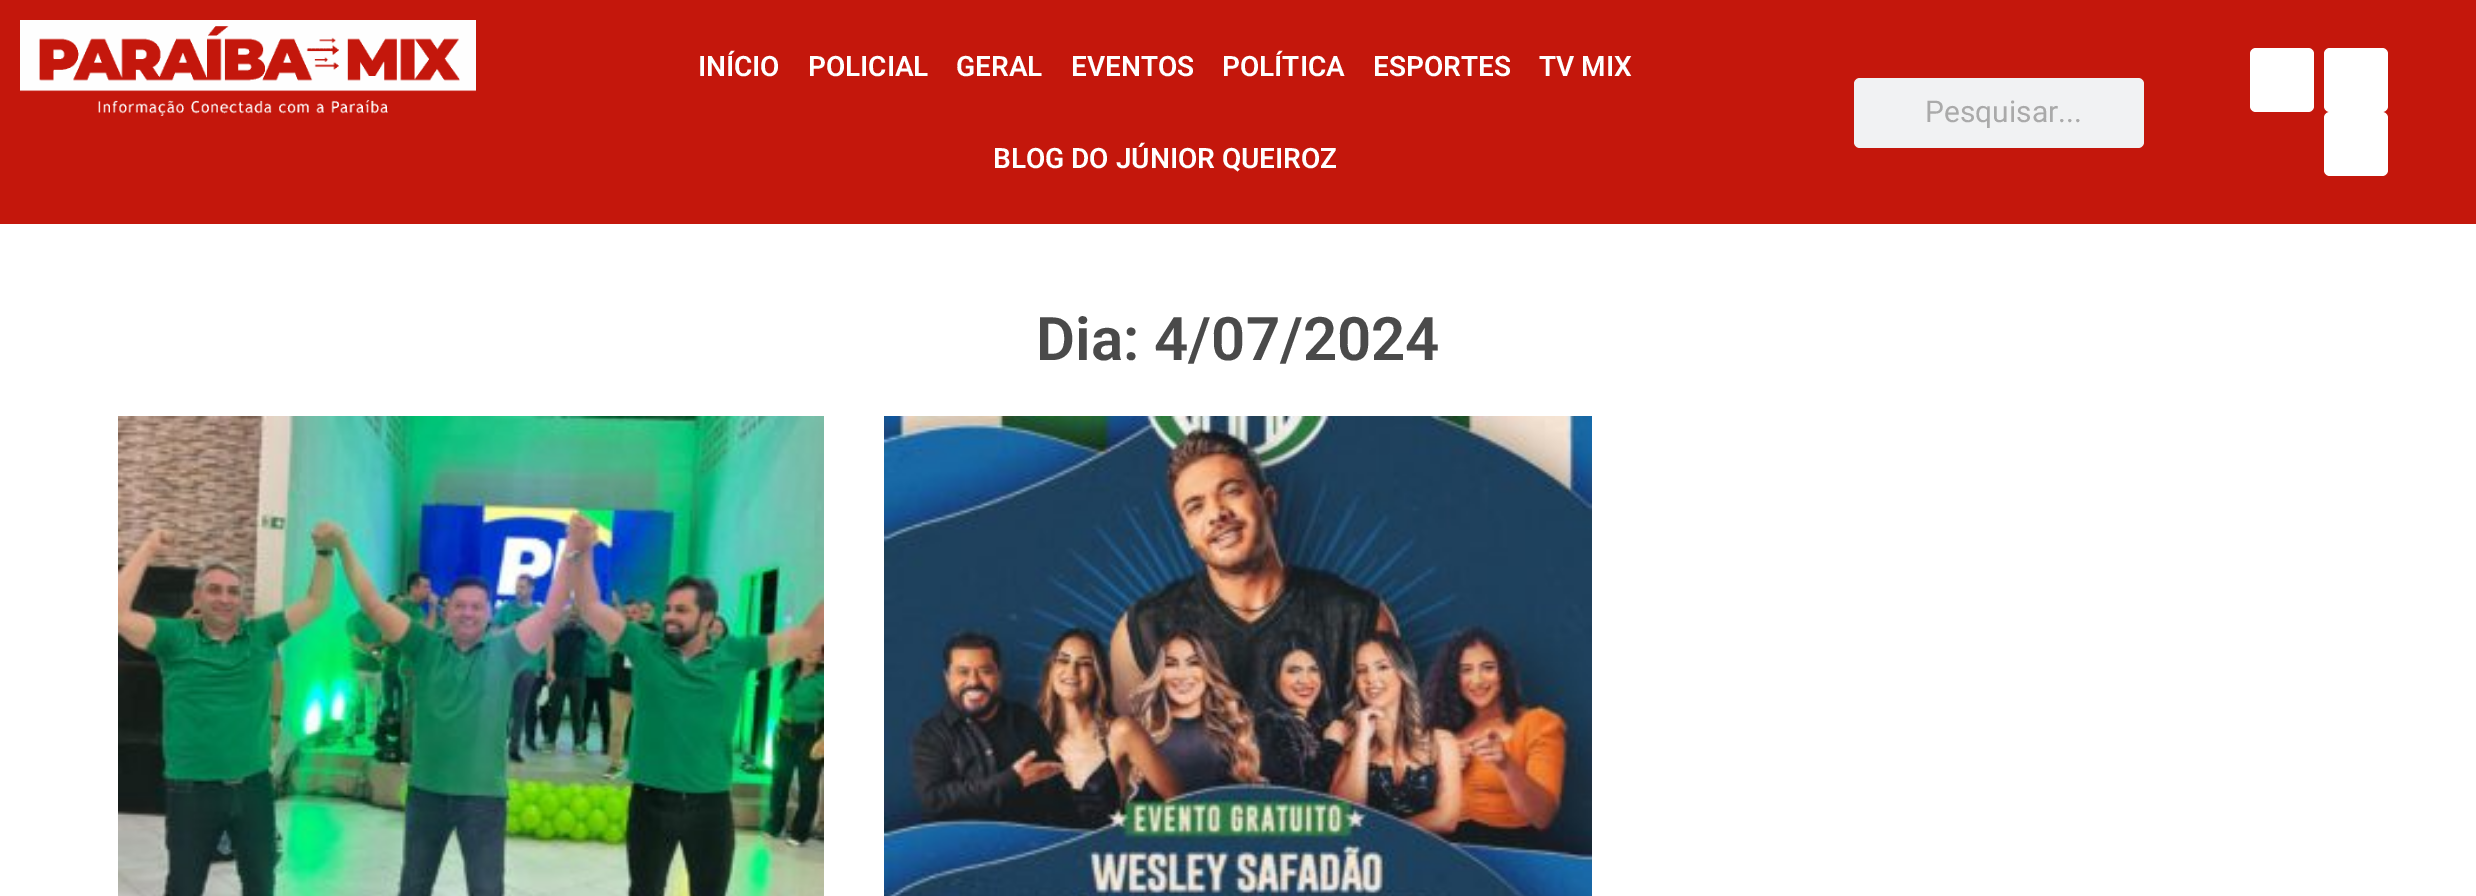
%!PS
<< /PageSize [2476 896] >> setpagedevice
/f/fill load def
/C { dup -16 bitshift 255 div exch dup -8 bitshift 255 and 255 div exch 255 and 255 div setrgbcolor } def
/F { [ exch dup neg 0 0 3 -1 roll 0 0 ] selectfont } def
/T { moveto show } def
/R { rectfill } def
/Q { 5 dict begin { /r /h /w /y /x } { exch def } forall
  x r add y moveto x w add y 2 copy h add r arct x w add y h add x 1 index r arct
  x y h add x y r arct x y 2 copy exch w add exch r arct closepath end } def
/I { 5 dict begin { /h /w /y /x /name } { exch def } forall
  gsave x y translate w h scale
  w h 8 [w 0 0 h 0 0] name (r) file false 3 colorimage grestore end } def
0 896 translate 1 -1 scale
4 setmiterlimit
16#FFFFFF C
0 0 2476 896 R
16#C4170C C
0 0 2476 224 R
(1.rgb) 20 20 456 96 I
/Roboto-SemiBold 28 F
16#FFFFFF C
(INÍCIO) 698 76 T
(POLICIAL) 808 76 T
(GERAL) 956 76 T
(EVENTOS) 1071 76 T
(POLÍTICA) 1222 76 T
(ESPORTES) 1373 76 T
(TV MIX) 1539 76 T
(BLOG DO JÚNIOR QUEIROZ) 993 168 T
16#F1F2F3 C
1854 78 290 70 6 Q f
/Roboto-Regular 30 F
16#AAAAAA C
(Pesquisar...) 1925 122 T
16#FFFFFF C
2250 48 64 64 6 Q f
2324 48 64 64 6 Q f
2324 112 64 64 6 Q f
/Roboto-SemiBold 60 F
16#4A4A4A C
(Dia: 4/07/2024) 1036 360 T
(2.rgb) 118 416 706 480 I
(3.rgb) 884 416 708 480 I
showpage
